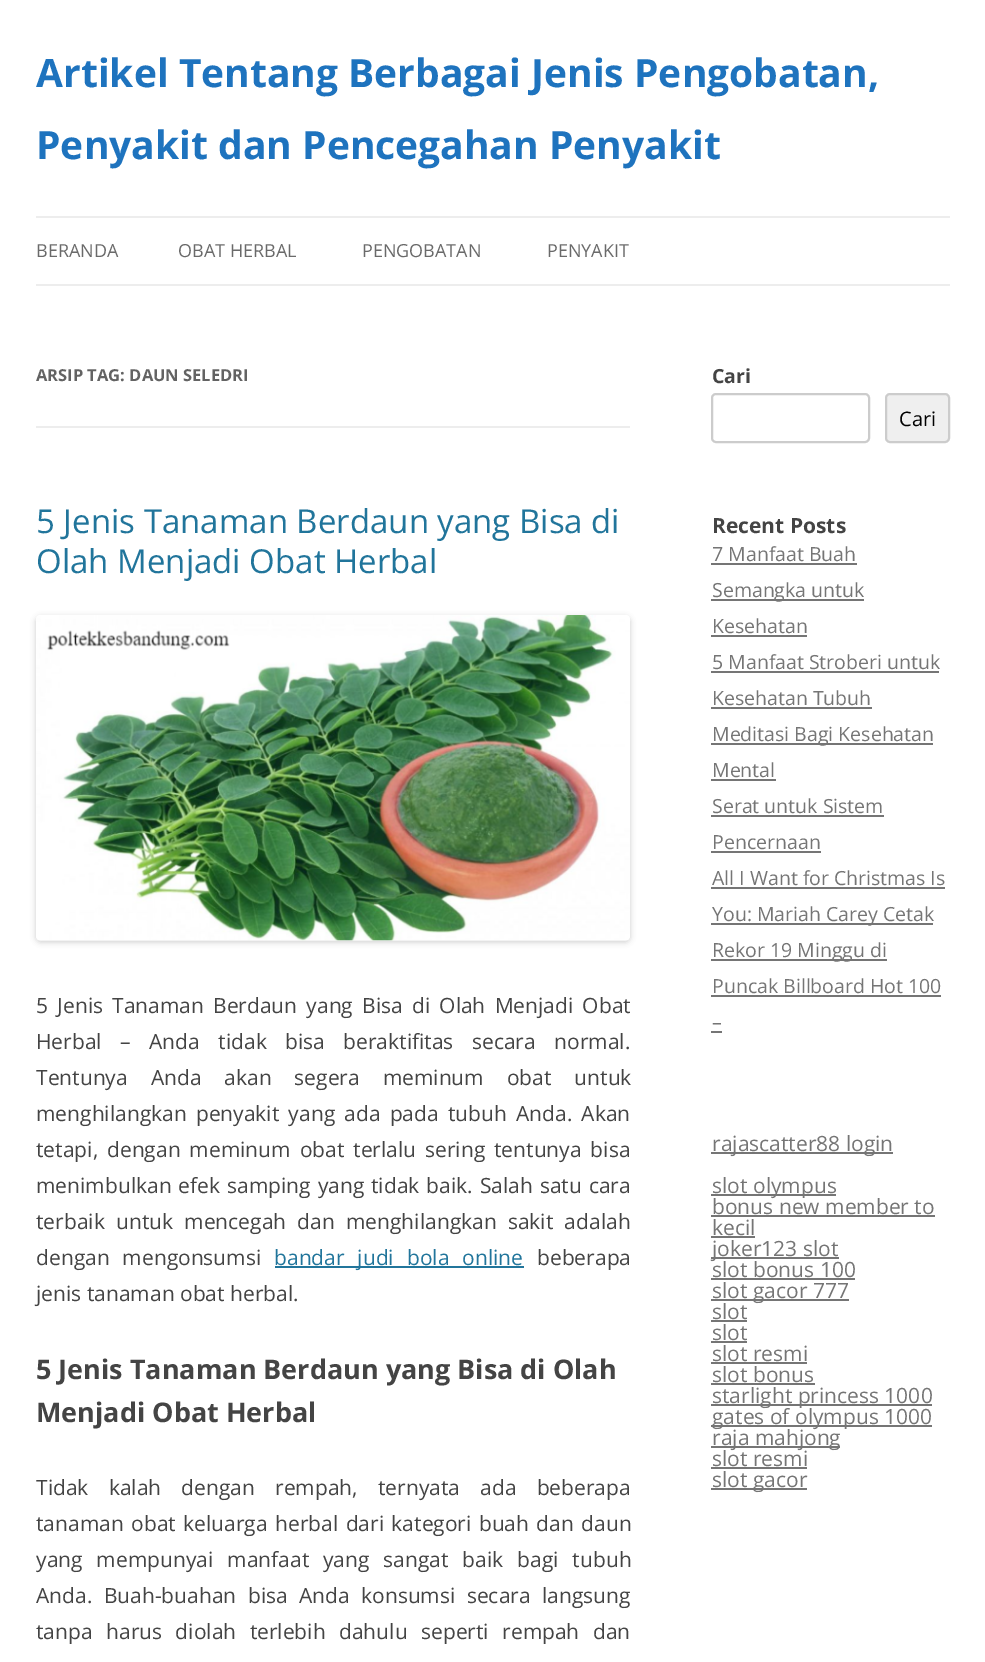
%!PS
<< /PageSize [985 1662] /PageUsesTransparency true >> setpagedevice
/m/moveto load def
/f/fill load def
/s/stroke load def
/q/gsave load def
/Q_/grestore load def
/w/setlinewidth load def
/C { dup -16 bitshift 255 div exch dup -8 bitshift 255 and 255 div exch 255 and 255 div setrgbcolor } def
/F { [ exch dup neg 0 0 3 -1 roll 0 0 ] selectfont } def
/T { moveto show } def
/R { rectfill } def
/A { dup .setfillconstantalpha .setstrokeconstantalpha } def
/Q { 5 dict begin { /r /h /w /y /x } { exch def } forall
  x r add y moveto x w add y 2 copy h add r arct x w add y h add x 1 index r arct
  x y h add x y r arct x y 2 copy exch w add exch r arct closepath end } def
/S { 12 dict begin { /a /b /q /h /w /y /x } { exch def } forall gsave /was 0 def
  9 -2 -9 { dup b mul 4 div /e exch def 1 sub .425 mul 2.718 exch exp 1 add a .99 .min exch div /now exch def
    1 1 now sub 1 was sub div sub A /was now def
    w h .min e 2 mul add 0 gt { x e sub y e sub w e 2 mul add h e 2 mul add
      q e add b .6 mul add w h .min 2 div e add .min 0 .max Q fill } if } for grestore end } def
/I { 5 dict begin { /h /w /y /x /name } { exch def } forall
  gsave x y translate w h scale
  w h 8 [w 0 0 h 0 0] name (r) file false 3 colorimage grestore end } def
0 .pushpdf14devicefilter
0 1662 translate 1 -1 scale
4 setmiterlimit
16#FFFFFF C
0 0 985 1662 R
/OpenSans-Bold 39 F
16#1E73BE C
(Artikel Tentang Berbagai Jenis Pengobatan,) 36 87 T
(Penyakit dan Pencegahan Penyakit) 36 159 T
16#EDEDED C
36 216 914 2 R
36 284 914 2 R
/OpenSans-Regular 18 F
16#6A6A6A C
(BERANDA) 36 257 T
(OBAT HERBAL) 178 257 T
(PENGOBATAN) 362 257 T
(PENYAKIT) 547 257 T
16#EDEDED C
36 426 594 2 R
/OpenSans-Bold 16.5 F
16#636363 C
(ARSIP TAG: DAUN SELEDRI) 36 381 T
/OpenSans-Regular 33 F
16#21759B C
(5 Jenis Tanaman Berdaun yang Bisa di) 36 533 T
(Olah Menjadi Obat Herbal) 36 573 T
16#000000 C
36 617 594 325 5 3 .2 S
(1.rgb) 36 615 594 326 I
/OpenSans-Regular 21 F
16#444444 C
36 1013 m 3.75 0 32 (5 Jenis Tanaman Berdaun yang Bisa di Olah Menjadi Obat) widthshow
36 1049 m 13 0 32 (Herbal – Anda tidak bisa beraktifitas secara normal.) widthshow
36 1085 m 17.5 0 32 (Tentunya Anda akan segera meminum obat untuk) widthshow
36 1121 m 3.75 0 32 (menghilangkan penyakit yang ada pada tubuh Anda. Akan) widthshow
36 1157 m 3.5 0 32 (tetapi, dengan meminum obat terlalu sering tentunya bisa) widthshow
36 1193 m 1.5 0 32 (menimbulkan efek samping yang tidak baik. Salah satu cara) widthshow
36 1229 m 5.75 0 32 (terbaik untuk mencegah dan menghilangkan sakit adalah) widthshow
36 1265 m 7.5 0 32 (dengan mengonsumsi) widthshow
16#21759B C
275 1266 249 2 R
274 1265 m 7.5 0 32 (bandar judi bola online) widthshow
16#444444 C
(beberapa) 537 1265 T
(jenis tanaman obat herbal.) 36 1301 T
/OpenSans-Bold 27 F
(5 Jenis Tanaman Berdaun yang Bisa di Olah) 36 1379 T
(Menjadi Obat Herbal) 36 1422 T
/OpenSans-Regular 21 F
36 1495 m 14.75 0 32 (Tidak kalah dengan rempah, ternyata ada beberapa) widthshow
36 1531 m 2 0 32 (tanaman obat keluarga herbal dari kategori buah dan daun) widthshow
36 1567 m 8.5 0 32 (yang mempunyai manfaat yang sangat baik bagi tubuh) widthshow
36 1603 m 6 0 32 (Anda. Buah-buahan bisa Anda konsumsi secara langsung) widthshow
36 1639 m 8 0 32 (tanpa harus diolah terlebih dahulu seperti rempah dan) widthshow
/OpenSans-Bold 19.5 F
(Cari) 712 383 T
16#CCCCCC C
2 w
712 394 157 48 4 Q s
16#EFEFEF C
886 394 63 48 4 Q q f Q_
16#CCCCCC C
s
/OpenSans-Regular 20 F
16#000000 C
(Cari) 899 426 T
/OpenSans-Bold 21 F
16#444444 C
(Recent Posts) 712 533 T
/OpenSans-Regular 19.5 F
16#757575 C
(7 Manfaat Buah) 712 561 T
711 563 146 2 R
711 599 153 2 R
(Semangka untuk) 712 597 T
(Kesehatan) 712 633 T
711 635 96 2 R
(5 Manfaat Stroberi untuk) 712 669 T
711 671 228 2 R
(Kesehatan Tubuh) 712 705 T
711 707 161 2 R
711 743 222 2 R
(Meditasi Bagi Kesehatan) 712 741 T
(Mental) 712 777 T
711 779 65 2 R
(Serat untuk Sistem) 712 813 T
711 815 173 2 R
(Pencernaan) 712 849 T
711 851 110 2 R
(All I Want for Christmas Is) 712 885 T
711 887 234 2 R
711 923 222 2 R
(You: Mariah Carey Cetak) 712 921 T
711 959 176 2 R
(Rekor 19 Minggu di) 712 957 T
(Puncak Billboard Hot 100) 712 993 T
711 995 230 2 R
(–) 712 1029 T
711 1031 11 2 R
711 1152 182 2 R
/OpenSans-Regular 21 F
(rajascatter88 login) 712 1151 T
711 1194 125 2 R
(slot olympus) 712 1193 T
(bonus new member to) 712 1214 T
711 1215 224 2 R
(kecil) 712 1235 T
711 1236 44 2 R
711 1257 128 2 R
(joker123 slot) 712 1256 T
(slot bonus 100) 712 1277 T
711 1278 144 2 R
711 1299 138 2 R
(slot gacor 777) 712 1298 T
(slot) 712 1319 T
711 1320 36 2 R
(slot) 712 1340 T
711 1341 36 2 R
(slot resmi) 712 1361 T
711 1362 96 2 R
(slot bonus) 712 1382 T
711 1383 104 2 R
711 1404 221 2 R
(starlight princess 1000) 712 1403 T
711 1425 221 2 R
(gates of olympus 1000) 712 1424 T
711 1446 129 2 R
(raja mahjong) 712 1445 T
(slot resmi) 712 1466 T
711 1467 96 2 R
711 1488 96 2 R
(slot gacor) 712 1487 T
.poppdf14devicefilter showpage
